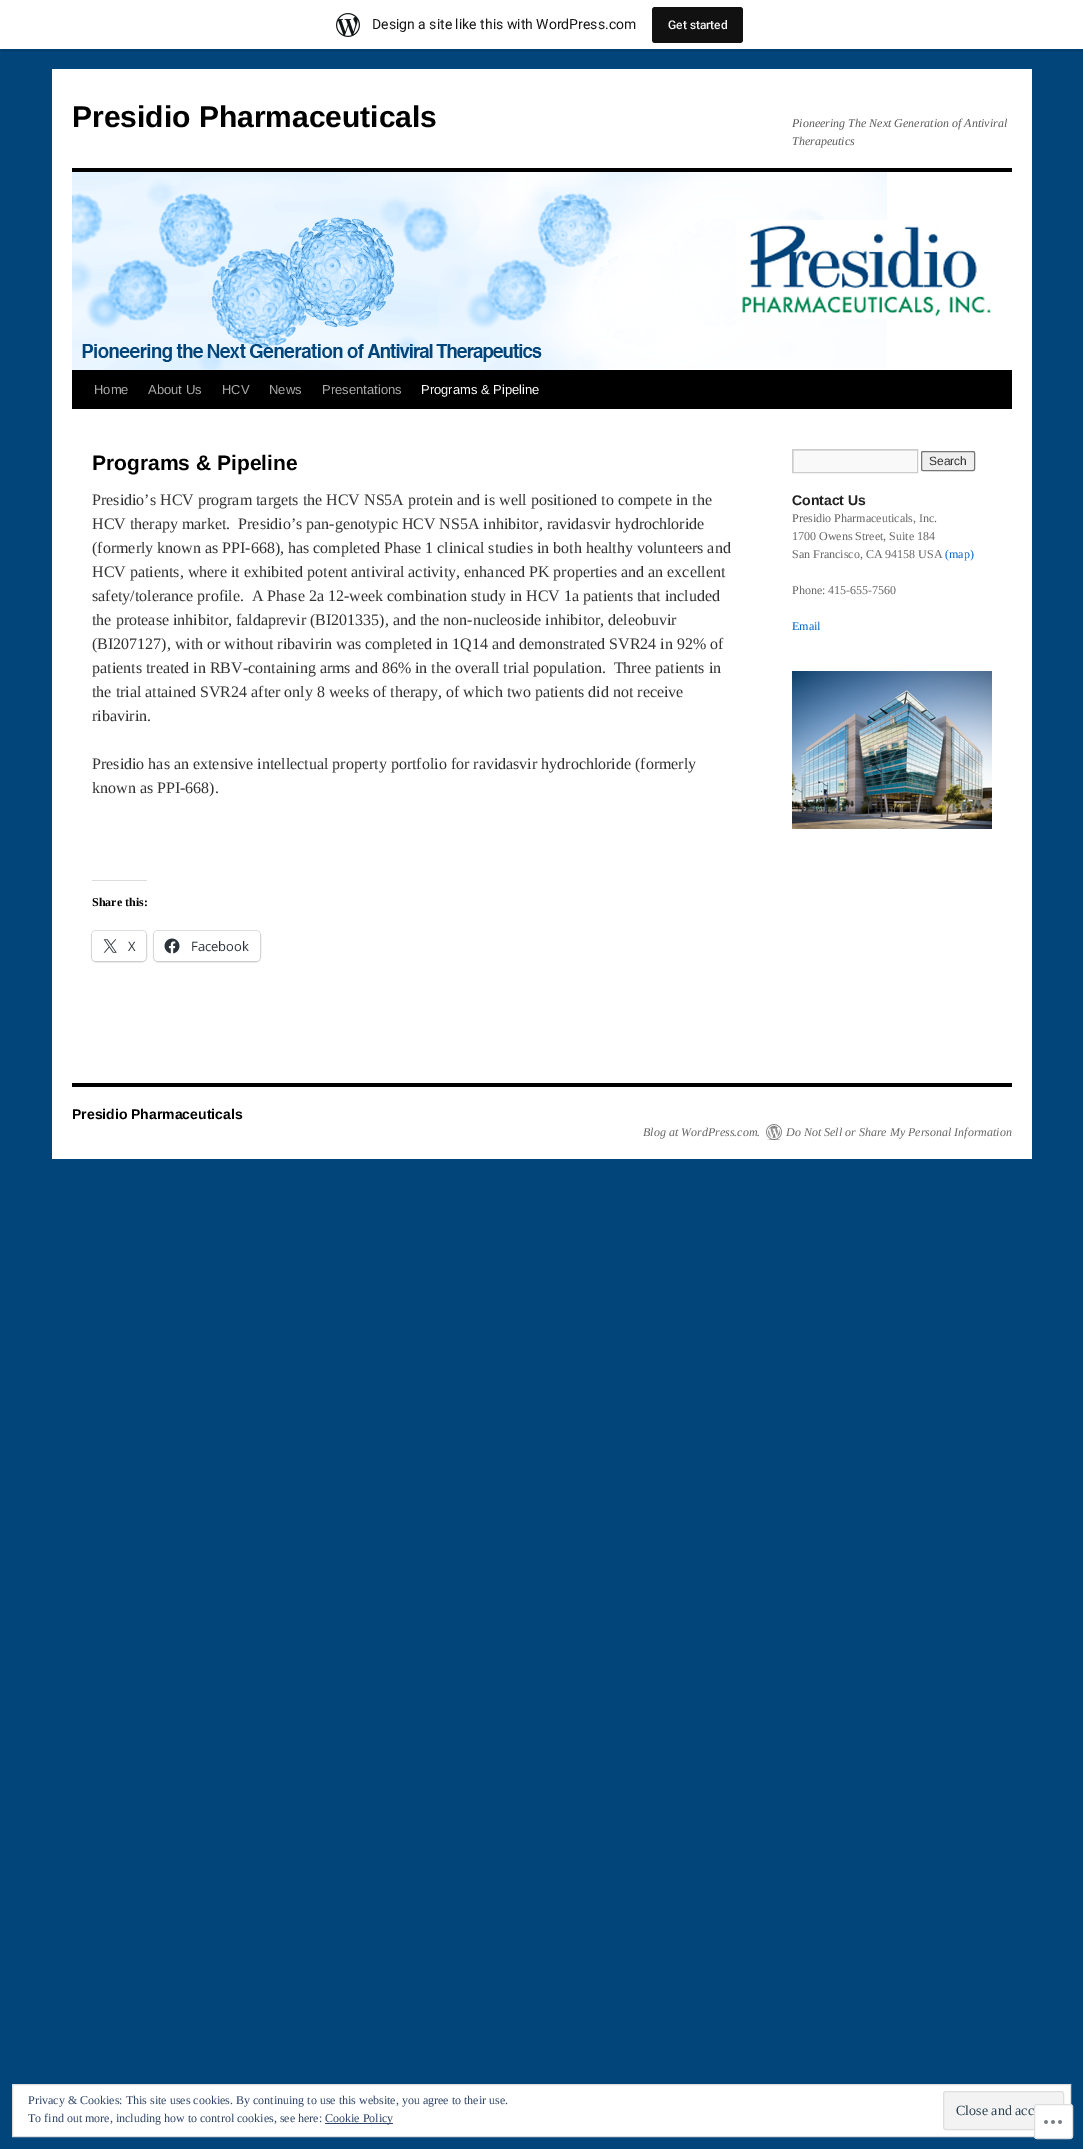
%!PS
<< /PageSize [1083 2149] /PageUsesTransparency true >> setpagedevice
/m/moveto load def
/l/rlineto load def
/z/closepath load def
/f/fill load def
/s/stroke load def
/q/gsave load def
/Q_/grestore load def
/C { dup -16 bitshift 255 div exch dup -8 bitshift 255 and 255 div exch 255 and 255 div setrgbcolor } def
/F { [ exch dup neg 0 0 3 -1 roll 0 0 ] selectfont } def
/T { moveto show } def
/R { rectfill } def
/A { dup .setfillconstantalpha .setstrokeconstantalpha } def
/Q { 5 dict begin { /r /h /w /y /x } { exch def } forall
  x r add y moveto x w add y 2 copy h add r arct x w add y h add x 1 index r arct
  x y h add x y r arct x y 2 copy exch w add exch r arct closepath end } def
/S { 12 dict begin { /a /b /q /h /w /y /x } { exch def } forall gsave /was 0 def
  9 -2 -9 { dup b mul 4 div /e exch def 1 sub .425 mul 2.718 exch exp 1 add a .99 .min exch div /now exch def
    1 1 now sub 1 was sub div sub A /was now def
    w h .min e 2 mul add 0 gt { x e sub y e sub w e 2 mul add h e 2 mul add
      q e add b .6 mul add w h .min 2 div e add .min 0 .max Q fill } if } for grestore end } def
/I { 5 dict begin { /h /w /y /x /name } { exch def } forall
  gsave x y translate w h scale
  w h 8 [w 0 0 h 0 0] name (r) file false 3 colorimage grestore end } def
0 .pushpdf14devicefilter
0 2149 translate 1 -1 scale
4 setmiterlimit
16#01457B C
0 0 1083 2149 R
0.08 A
16#000000 C
1 49 m 0 3 l 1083 0 l 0 -49 l -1 0 l 0 46 l z f
1 A
16#FFFFFF C
0 0 1083 49 R
(1.rgb) 336 13 24 24 I
/Roboto-Regular 14 F
16#171717 C
(Design a site like this with WordPress.com) 372 29 T
16#111111 C
652 7 91 36 3 Q f
/Roboto-Medium 12 F
16#F6F7F7 C
(Get started) 668 29 T
16#FFFFFF C
52 69 980 1090 R
/LiberationSans-Bold 30 F
16#000000 C
(Presidio Pharmaceuticals) 72 127 T
/LiberationSerif-Italic 12 F
16#595959 C
(Pioneering The Next Generation of Antiviral) 792 127 T
(Therapeutics) 792 145 T
16#000000 C
72 168 940 4 R
72 370 940 39 R
(2.rgb) 72 172 919 198 I
/LiberationSans-Regular 13 F
16#AAAAAA C
(Home) 94 394 T
(About Us) 148 394 T
(HCV) 222 394 T
(News) 269 394 T
(Presentations) 322 394 T
16#FFFFFF C
(Programs & Pipeline) 421 394 T
/LiberationSans-Bold 21 F
16#000000 C
(Programs & Pipeline) 92 470 T
/LiberationSerif-Regular 16 F
16#333333 C
(Presidio’s HCV program targets the HCV NS5A protein and is well positioned to compete in the) 92 505 T
(HCV therapy market.  Presidio’s pan-genotypic HCV NS5A inhibitor, ravidasvir hydrochloride) 92 529 T
(\(formerly known as PPI-668\), has completed Phase 1 clinical studies in both healthy volunteers and) 92 553 T
(HCV patients, where it exhibited potent antiviral activity, enhanced PK properties and an excellent) 92 577 T
(safety/tolerance profile.  A Phase 2a 12-week combination study in HCV 1a patients that included) 92 601 T
(the protease inhibitor, faldaprevir \(BI201335\), and the non-nucleoside inhibitor, deleobuvir) 92 625 T
(\(BI207127\), with or without ribavirin was completed in 1Q14 and demonstrated SVR24 in 92% of) 92 649 T
(patients treated in RBV-containing arms and 86% in the overall trial population.  Three patients in) 92 673 T
(the trial attained SVR24 after only 8 weeks of therapy, of which two patients did not receive) 92 697 T
(ribavirin.) 92 721 T
(Presidio has an extensive intellectual property portfolio for ravidasvir hydrochloride \(formerly) 92 769 T
(known as PPI-668\).) 92 793 T
16#DCDCDE C
92 880 55 1 R
/LiberationSerif-Bold 12 F
16#000000 C
(Share this:) 92 906 T
16#E0E0E0 C
91.5 930.5 55 31 4.5 Q s
16#000000 C
92 932 54 30 4 1 .12 S
16#FFFFFF C
92 931 54 30 4 Q f
(3.rgb) 103 939 14 14 I
/OpenSans-Regular 13 F
16#2C3338 C
(X) 128 951 T
16#E0E0E0 C
153.5 930.5 107 31 4.5 Q s
16#000000 C
154 932 106 30 4 1 .12 S
16#FFFFFF C
154 931 106 30 4 Q f
(4.rgb) 164 938 16 16 I
16#2C3338 C
(Facebook) 191 951 T
16#F9F9F9 C
794 451 123 21 R
q
793 450 124 22 rectclip
16#E0E0E0 C
694 351 m 322 0 l 0 220 l -322 0 l z 794 451 m 124 0 l 0 22 l -124 0 l z eofill
Q_
16#CCCCCC C
792.5 449.5 125 23 rectstroke
16#EFEFEF C
921.5 451.5 53 19 1.5 Q q f Q_
16#767676 C
s
/LiberationSans-Regular 12 F
16#333333 C
(Search) 929 465 T
/LiberationSans-Bold 14 F
16#222222 C
(Contact Us) 792 505 T
/LiberationSerif-Regular 12 F
16#666666 C
(Presidio Pharmaceuticals, Inc.) 792 522 T
(1700 Owens Street, Suite 184) 792 540 T
(San Francisco, CA 94158 USA) 792 558 T
16#0066CC C
(\(map\)) 945 558 T
16#666666 C
(Phone: 415-655-7560) 792 594 T
16#0066CC C
(Email) 792 630 T
(5.rgb) 792 671 200 158 I
16#000000 C
72 1083 940 4 R
/LiberationSans-Bold 14 F
(Presidio Pharmaceuticals) 72 1119 T
/LiberationSerif-Italic 12 F
16#666666 C
(Blog at WordPress.com.) 643 1136 T
(6.rgb) 766 1124 16 16 I
(Do Not Sell or Share My Personal Information) 786 1136 T
16#FFFFFF C
12.5 2084.5 m 1058 0 l 0 52 l -1058 0 l z q f Q_
16#DEDEDE C
s
/LiberationSerif-Regular 12 F
16#2E4467 C
(Privacy & Cookies: This site uses cookies. By continuing to use this website, you agree to their use.) 28 2104 T
16#F3F3F3 C
943.5 2091.5 120 38 2.5 Q q f Q_
16#DEDEDE C
s
/LiberationSerif-Regular 14 F
16#2E4453 C
(Close and acc) 956 2115 T
/LiberationSerif-Regular 12 F
16#2E4467 C
(To find out more, including how to control cookies, see here:) 28 2122 T
325 2123 68 1 R
(Cookie Policy) 325 2122 T
0.98 A
16#FFFFFF C
1034 2104 39 35 3 Q f
16#DCDCDE C
1034.5 2104.5 38 34 2.5 Q s
1 A
(7.rgb) 1044 2120 18 4 I
.poppdf14devicefilter showpage
